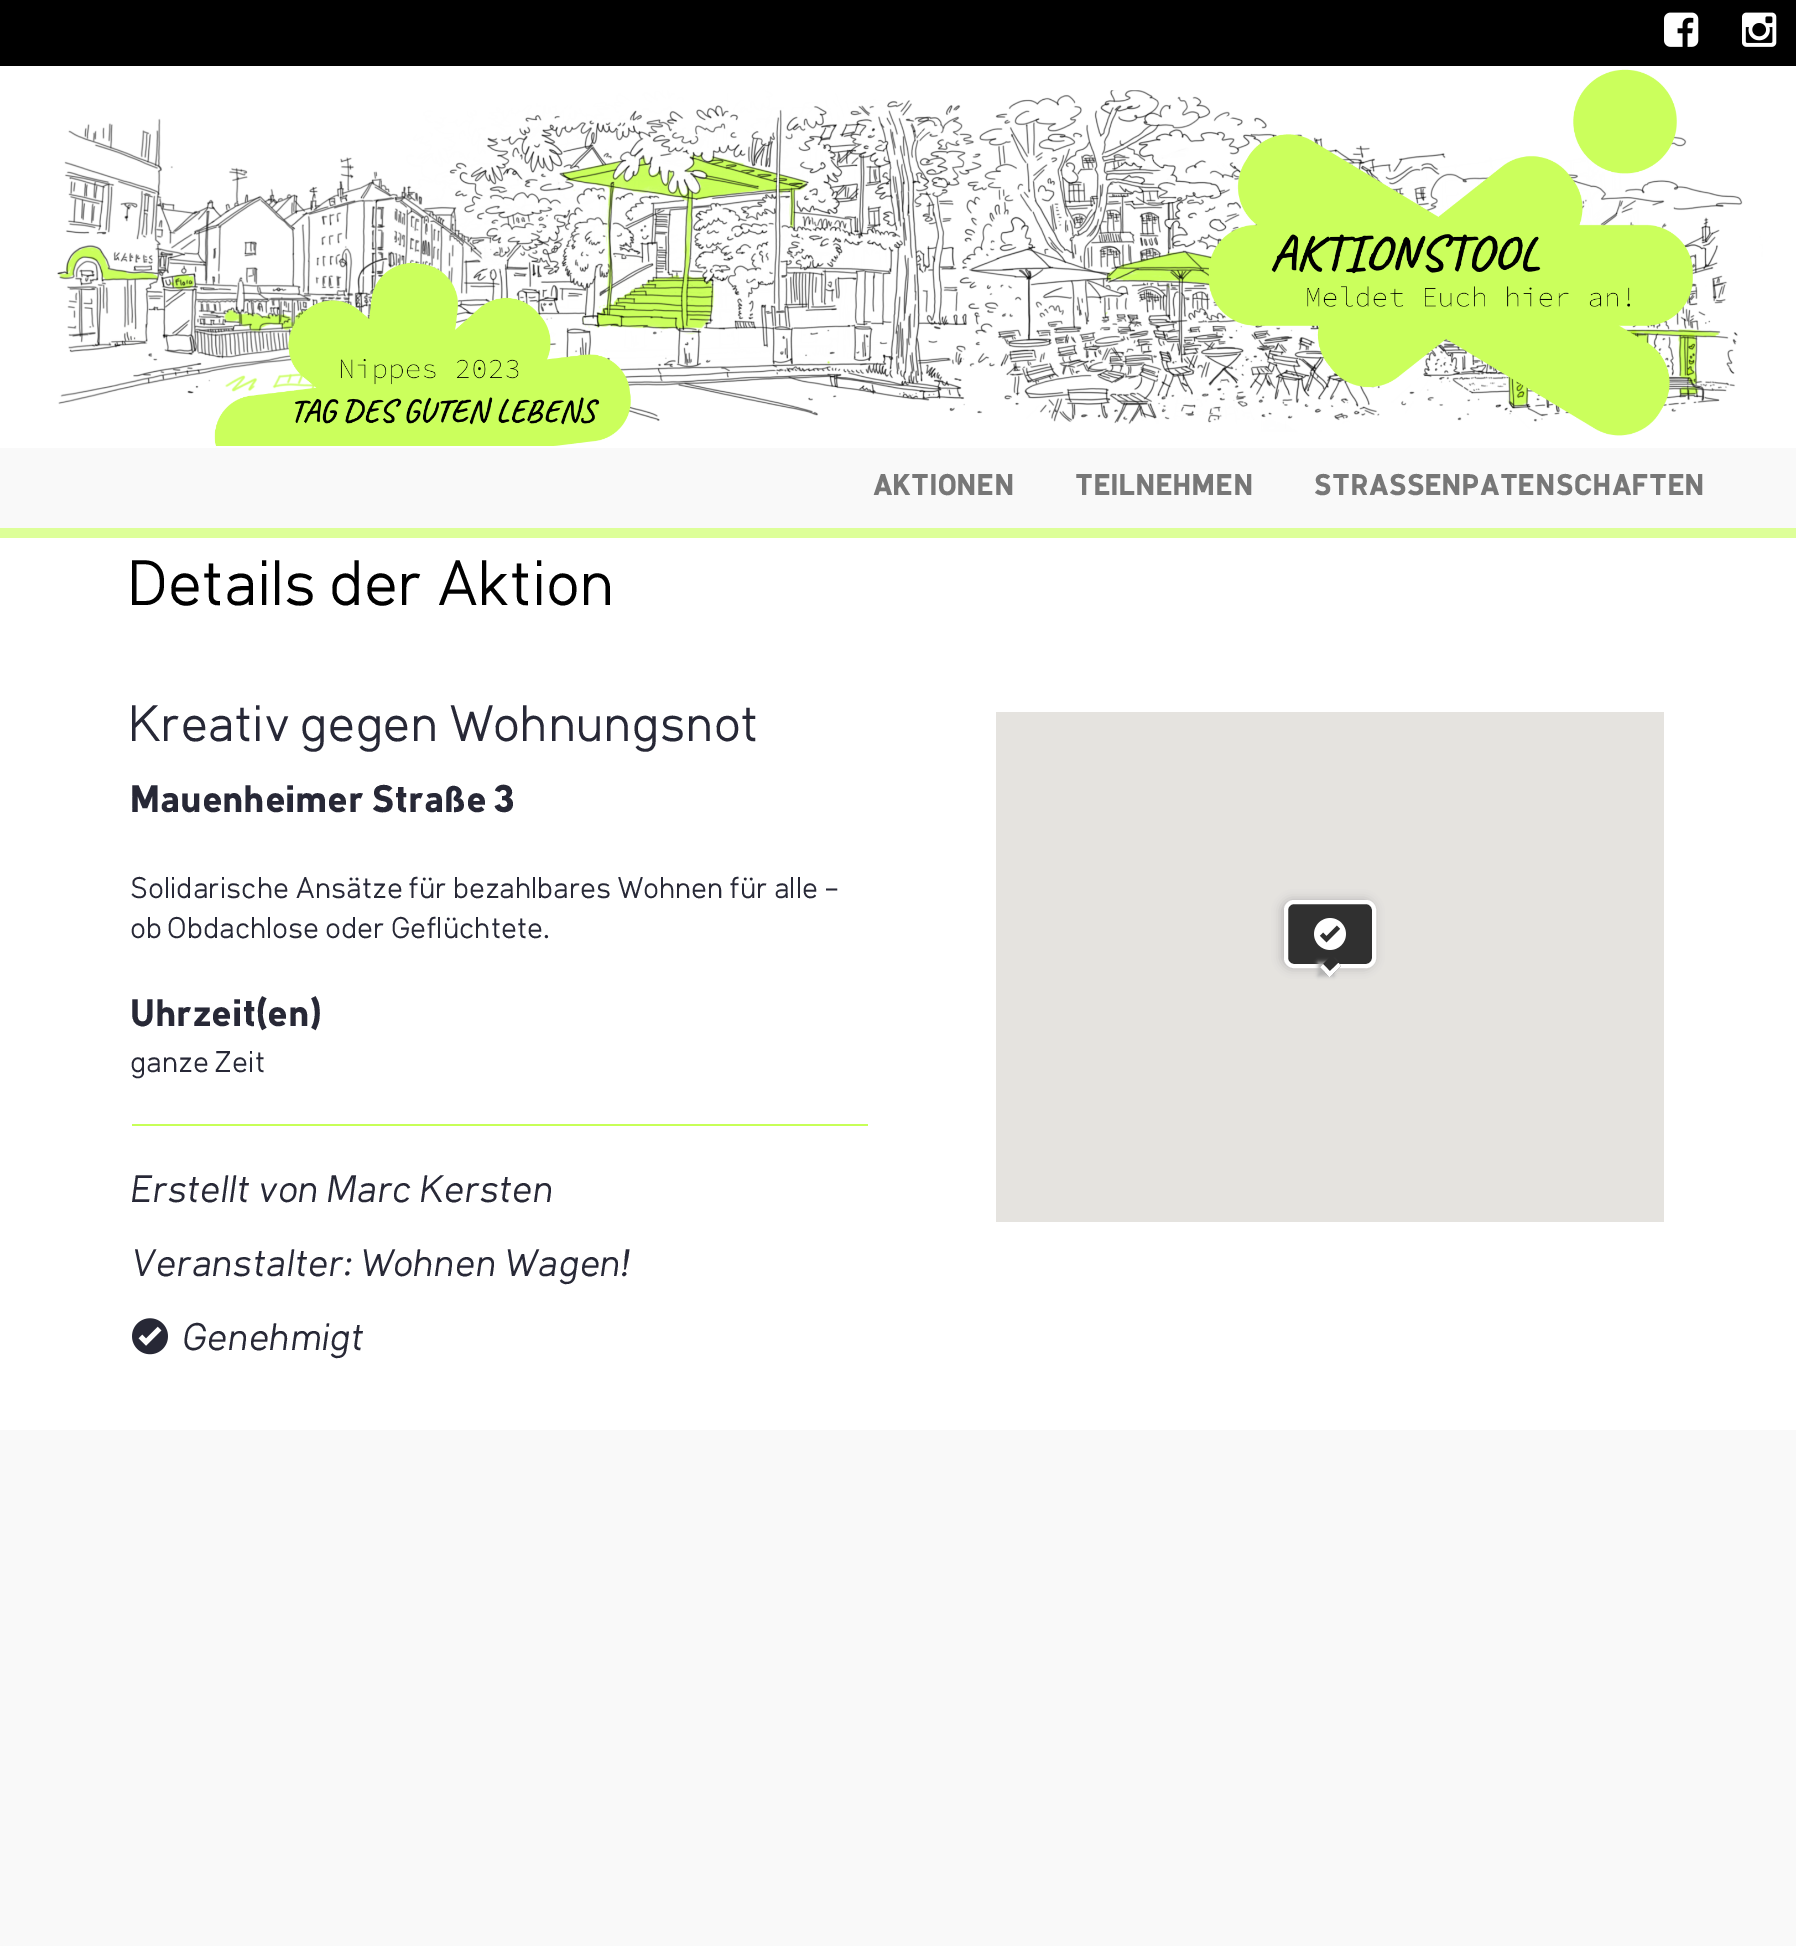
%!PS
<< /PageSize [1796 1946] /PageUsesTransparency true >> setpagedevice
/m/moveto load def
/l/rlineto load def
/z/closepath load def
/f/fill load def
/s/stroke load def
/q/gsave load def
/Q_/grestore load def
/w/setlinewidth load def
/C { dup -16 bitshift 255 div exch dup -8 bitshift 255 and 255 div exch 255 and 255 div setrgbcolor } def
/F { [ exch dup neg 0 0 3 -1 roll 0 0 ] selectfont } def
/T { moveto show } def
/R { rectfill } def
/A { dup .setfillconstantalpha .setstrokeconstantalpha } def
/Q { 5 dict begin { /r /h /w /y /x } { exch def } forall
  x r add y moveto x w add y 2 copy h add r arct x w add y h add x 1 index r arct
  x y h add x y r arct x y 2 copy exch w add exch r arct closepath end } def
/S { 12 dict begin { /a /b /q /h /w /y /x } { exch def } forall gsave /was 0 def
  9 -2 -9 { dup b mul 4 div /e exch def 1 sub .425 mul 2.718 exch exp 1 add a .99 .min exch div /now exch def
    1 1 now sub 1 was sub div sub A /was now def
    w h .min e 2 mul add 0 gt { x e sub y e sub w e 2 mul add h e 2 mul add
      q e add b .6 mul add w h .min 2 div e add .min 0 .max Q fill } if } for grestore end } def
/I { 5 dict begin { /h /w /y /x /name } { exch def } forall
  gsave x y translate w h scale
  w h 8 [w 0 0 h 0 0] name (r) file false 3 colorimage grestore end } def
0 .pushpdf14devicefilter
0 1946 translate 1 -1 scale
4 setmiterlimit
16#F9F9F9 C
0 0 1796 1946 R
16#FFFFFF C
0 538 1796 892 R
16#000000 C
0 0 1796 66 R
(1.rgb) 1664 12 35 35 I
(2.rgb) 1742 12 35 35 I
(3.rgb) 0 66 1796 380 I
16#FFFFFF C
0 446 1796 2 R
16#DDFF99 C
0 528 1796 10 R
/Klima-BoldItalic 28 F
16#777777 C
(AKTIONEN) 874 495 T
(TEILNEHMEN) 1076 495 T
(STRASSENPATENSCHAFTEN) 1315 495 T
/Klima-Italic 60 F
16#000000 C
(Details der Aktion) 132 605 T
/Klima-Italic 48 F
16#272836 C
(Kreativ gegen Wohnungsnot) 132 741 T
/Klima-BoldItalic 36 F
(Mauenheimer Straße 3) 132 812 T
/Klima-Italic 28 F
(Solidarische Ansätze für bezahlbares Wohnen für alle -) 132 898 T
(ob Obdachlose oder Geflüchtete.) 132 938 T
/Klima-BoldItalic 36 F
(Uhrzeit\(en\)) 132 1026 T
/Klima-Italic 28 F
(ganze Zeit) 132 1072 T
16#C7FF57 C
132 1124 736 2 R
/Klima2-Italic 36 F
16#272836 C
(Erstellt von Marc Kersten) 132 1202 T
(Veranstalter: Wohnen Wagen!) 132 1276 T
(4.rgb) 132 1318 36 37 I
(Genehmigt) 183 1350 T
16#E5E3DF C
996 712 668 510 R
16#B2B2B2 C
1282 900 92 68 10 5 1 S
16#303030 C
1286 902 88 64 8 Q q f Q_
16#FFFFFF C
4 w
s
(5.rgb) 1314 918 32 32 I
16#B2B2B2 C
1318 962 16 14 0 2 1 S
16#303030 C
1320 967 m 11.5 -11.5 l 9.5 10.5 l -11.5 11 l z f
16#FFFFFF C
1327 974 m 11.5 -11 l 2.5 3 l -11.5 11 l z f
1320 967 m 3 -3 l 9.5 10 l -3 3 l z f
.poppdf14devicefilter showpage
